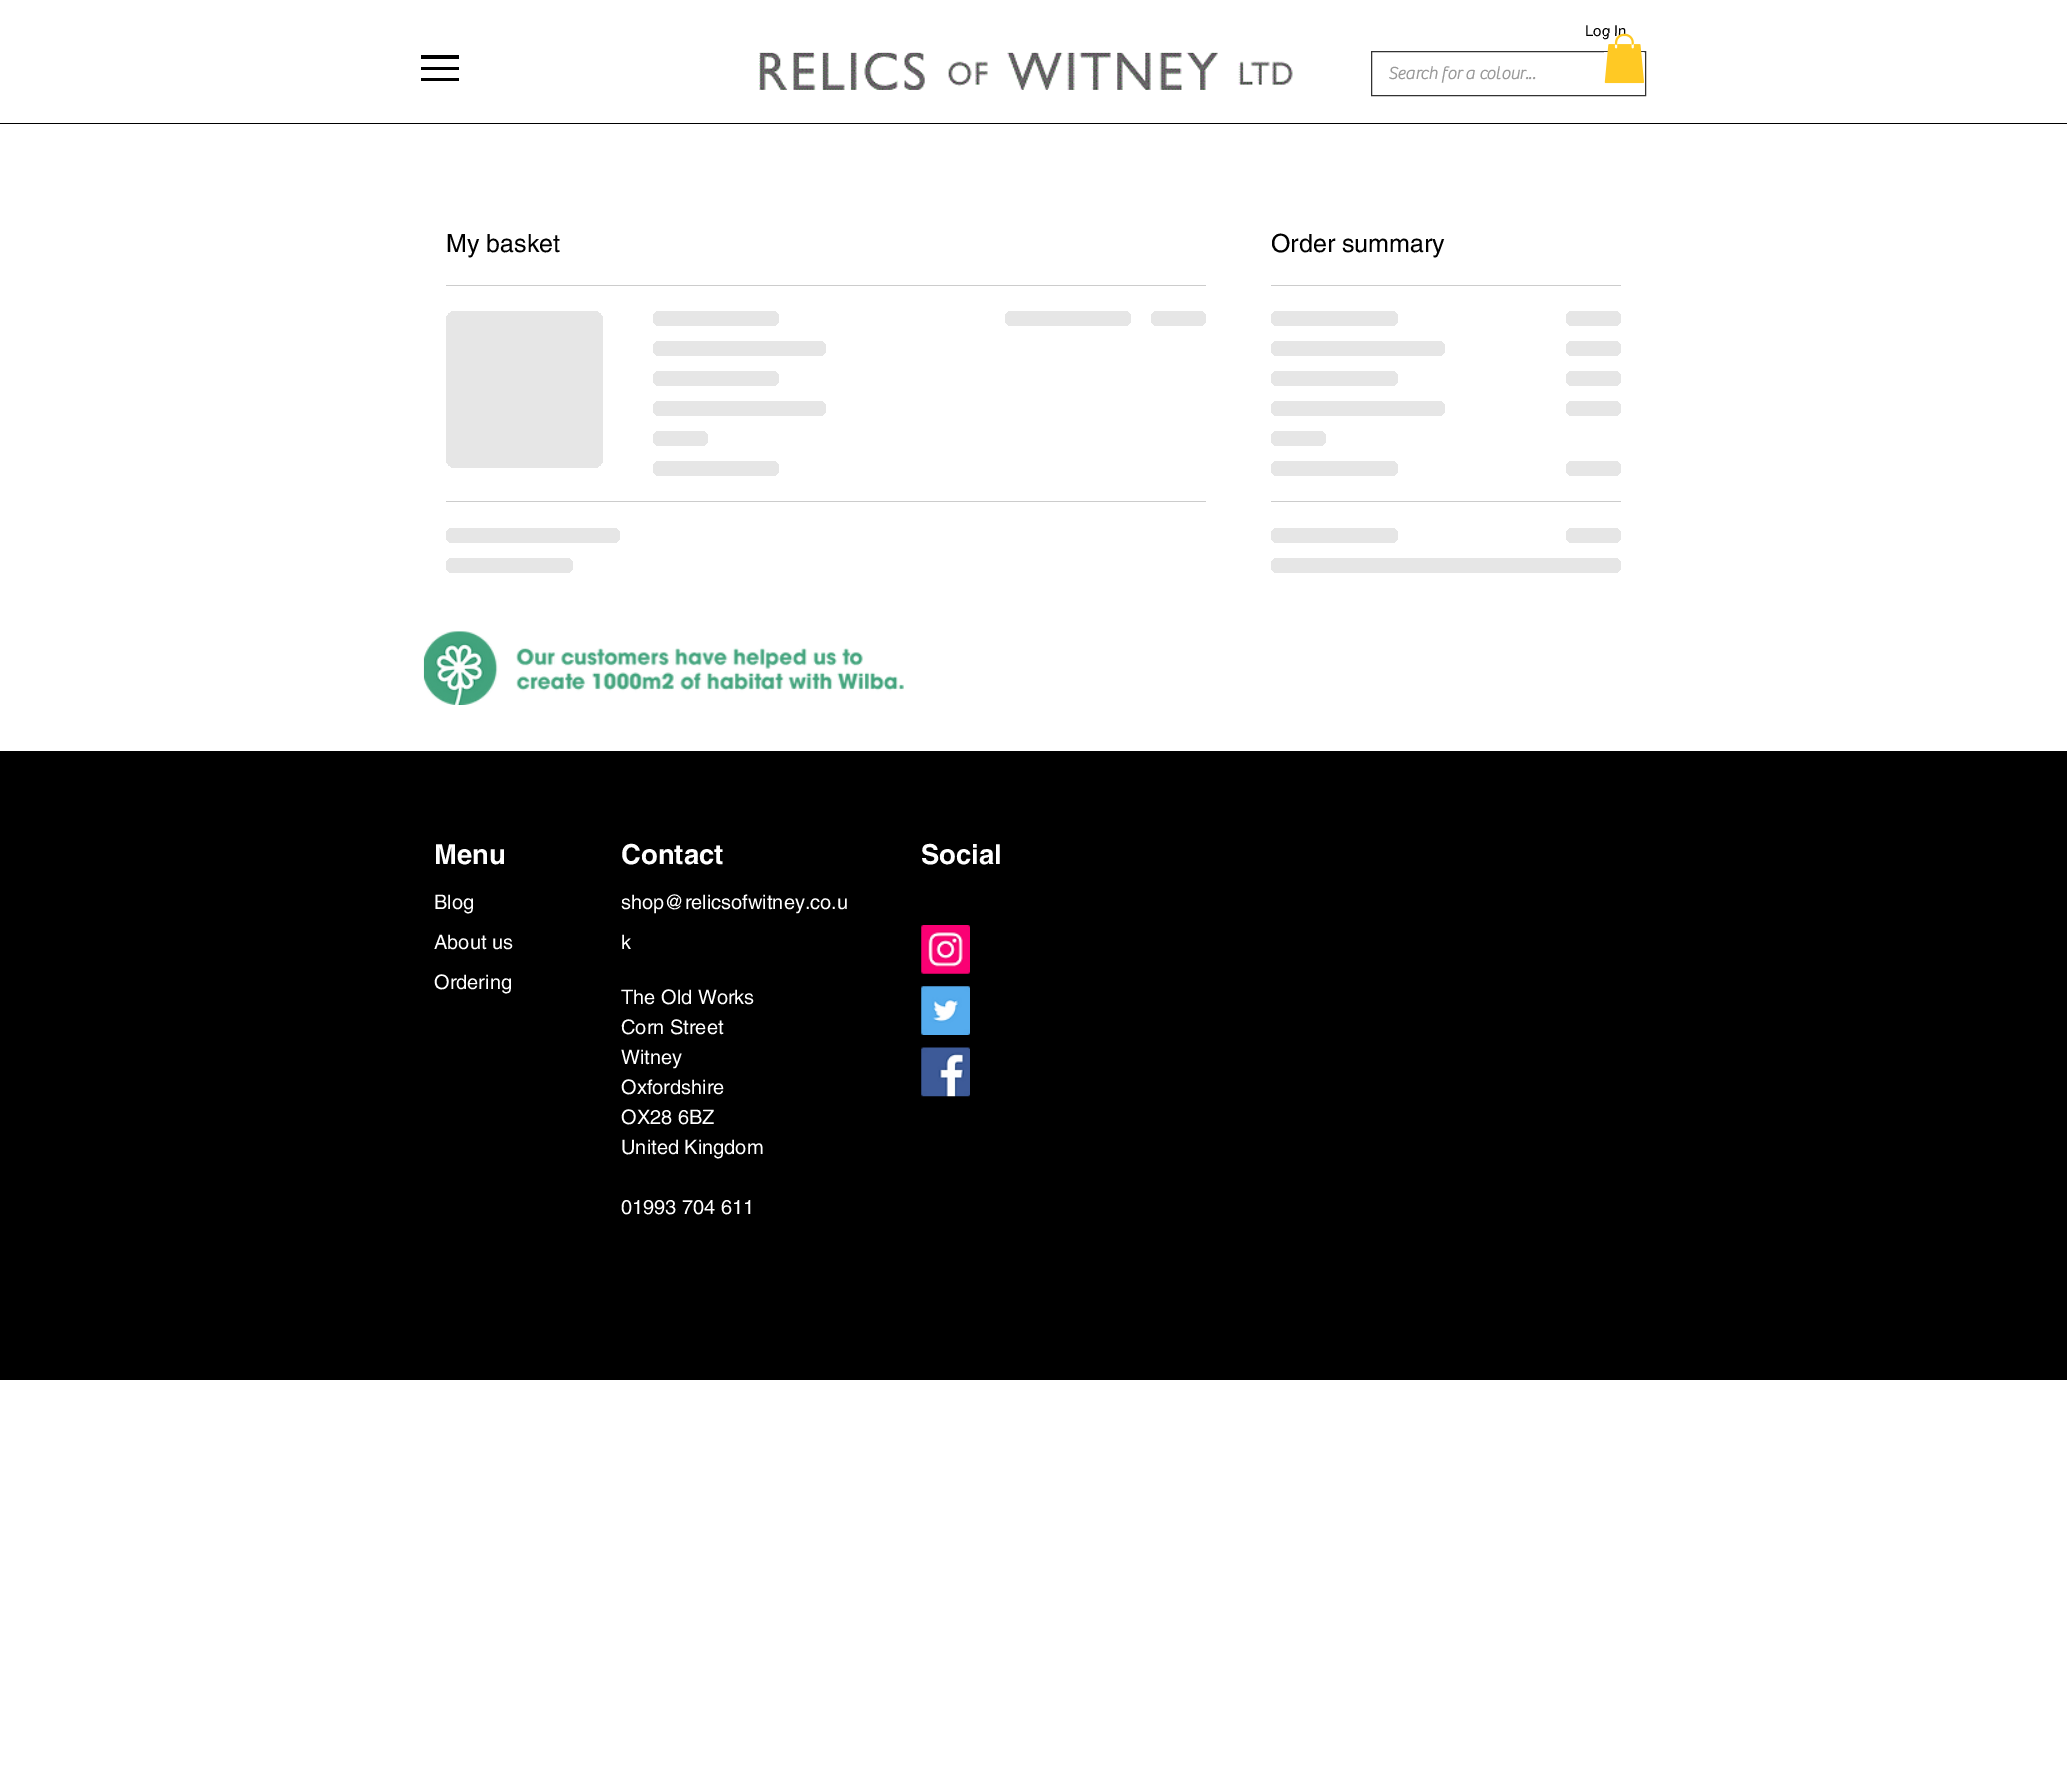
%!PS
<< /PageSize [2067 1781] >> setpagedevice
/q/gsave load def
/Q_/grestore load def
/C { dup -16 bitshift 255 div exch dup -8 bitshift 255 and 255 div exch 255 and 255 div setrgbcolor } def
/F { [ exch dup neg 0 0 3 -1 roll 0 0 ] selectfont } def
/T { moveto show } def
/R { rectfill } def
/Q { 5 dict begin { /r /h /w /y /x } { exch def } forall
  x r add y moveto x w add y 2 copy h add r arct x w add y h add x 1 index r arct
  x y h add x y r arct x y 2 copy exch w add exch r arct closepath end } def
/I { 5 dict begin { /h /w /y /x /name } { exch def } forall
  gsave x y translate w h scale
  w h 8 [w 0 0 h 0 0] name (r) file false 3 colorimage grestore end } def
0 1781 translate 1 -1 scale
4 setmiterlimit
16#FFFFFF C
0 0 2067 1781 R
/helvetica-Regular 15 F
16#000000 C
(Log In) 1585 36 T
421 78 38 3 R
421 55 38 4 R
421 67 38 3 R
(1.rgb) 759 52 534 38 I
16#323232 C
1371.5 51.5 274 44 rectstroke
/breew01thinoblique-Bold 17.5 F
16#999999 C
(Search for a colour...) 1388 79 T
(2.rgb) 1604 33 40 51 I
16#000000 C
0 123 2067 1 R
16#CCCCCC C
446 285 760 1 R
/helvetica-Regular 25 F
16#000000 C
(My basket) 446 252 T
q 446 311 157 157 10 Q clip newpath
<< /ShadingType 2 /ColorSpace /DeviceRGB /Coords [446 389 1071 389] /Extend [true true] /Function << /FunctionType 3 /Domain [0 1] /Functions [<< /FunctionType 2 /Domain [0 1] /C0 [.902 .902 .902] /C1 [.902 .902 .902] /N 1 >> << /FunctionType 2 /Domain [0 1] /C0 [.902 .902 .902] /C1 [.8 .8 .8] /N 1 >> << /FunctionType 2 /Domain [0 1] /C0 [.8 .8 .8] /C1 [.902 .902 .902] /N 1 >> << /FunctionType 2 /Domain [0 1] /C0 [.902 .902 .902] /C1 [.902 .902 .902] /N 1 >>] /Bounds [.25 .37 .63] /Encode [0 1 0 1 0 1 0 1] >> >> shfill Q_
q 653 311 126 15 7.5 Q clip newpath
<< /ShadingType 2 /ColorSpace /DeviceRGB /Coords [653 319 1158 319] /Extend [true true] /Function << /FunctionType 3 /Domain [0 1] /Functions [<< /FunctionType 2 /Domain [0 1] /C0 [.902 .902 .902] /C1 [.902 .902 .902] /N 1 >> << /FunctionType 2 /Domain [0 1] /C0 [.902 .902 .902] /C1 [.8 .8 .8] /N 1 >> << /FunctionType 2 /Domain [0 1] /C0 [.8 .8 .8] /C1 [.902 .902 .902] /N 1 >> << /FunctionType 2 /Domain [0 1] /C0 [.902 .902 .902] /C1 [.902 .902 .902] /N 1 >>] /Bounds [.25 .37 .63] /Encode [0 1 0 1 0 1 0 1] >> >> shfill Q_
q 653 341 173 15 7.5 Q clip newpath
<< /ShadingType 2 /ColorSpace /DeviceRGB /Coords [653 349 1348 349] /Extend [true true] /Function << /FunctionType 3 /Domain [0 1] /Functions [<< /FunctionType 2 /Domain [0 1] /C0 [.902 .902 .902] /C1 [.902 .902 .902] /N 1 >> << /FunctionType 2 /Domain [0 1] /C0 [.902 .902 .902] /C1 [.8 .8 .8] /N 1 >> << /FunctionType 2 /Domain [0 1] /C0 [.8 .8 .8] /C1 [.902 .902 .902] /N 1 >> << /FunctionType 2 /Domain [0 1] /C0 [.902 .902 .902] /C1 [.902 .902 .902] /N 1 >>] /Bounds [.25 .37 .63] /Encode [0 1 0 1 0 1 0 1] >> >> shfill Q_
q 653 371 126 15 7.5 Q clip newpath
<< /ShadingType 2 /ColorSpace /DeviceRGB /Coords [653 379 1158 379] /Extend [true true] /Function << /FunctionType 3 /Domain [0 1] /Functions [<< /FunctionType 2 /Domain [0 1] /C0 [.902 .902 .902] /C1 [.902 .902 .902] /N 1 >> << /FunctionType 2 /Domain [0 1] /C0 [.902 .902 .902] /C1 [.8 .8 .8] /N 1 >> << /FunctionType 2 /Domain [0 1] /C0 [.8 .8 .8] /C1 [.902 .902 .902] /N 1 >> << /FunctionType 2 /Domain [0 1] /C0 [.902 .902 .902] /C1 [.902 .902 .902] /N 1 >>] /Bounds [.25 .37 .63] /Encode [0 1 0 1 0 1 0 1] >> >> shfill Q_
q 653 401 173 15 7.5 Q clip newpath
<< /ShadingType 2 /ColorSpace /DeviceRGB /Coords [653 409 1348 409] /Extend [true true] /Function << /FunctionType 3 /Domain [0 1] /Functions [<< /FunctionType 2 /Domain [0 1] /C0 [.902 .902 .902] /C1 [.902 .902 .902] /N 1 >> << /FunctionType 2 /Domain [0 1] /C0 [.902 .902 .902] /C1 [.8 .8 .8] /N 1 >> << /FunctionType 2 /Domain [0 1] /C0 [.8 .8 .8] /C1 [.902 .902 .902] /N 1 >> << /FunctionType 2 /Domain [0 1] /C0 [.902 .902 .902] /C1 [.902 .902 .902] /N 1 >>] /Bounds [.25 .37 .63] /Encode [0 1 0 1 0 1 0 1] >> >> shfill Q_
q 653 431 55 15 7.5 Q clip newpath
<< /ShadingType 2 /ColorSpace /DeviceRGB /Coords [653 439 873 439] /Extend [true true] /Function << /FunctionType 3 /Domain [0 1] /Functions [<< /FunctionType 2 /Domain [0 1] /C0 [.902 .902 .902] /C1 [.902 .902 .902] /N 1 >> << /FunctionType 2 /Domain [0 1] /C0 [.902 .902 .902] /C1 [.8 .8 .8] /N 1 >> << /FunctionType 2 /Domain [0 1] /C0 [.8 .8 .8] /C1 [.902 .902 .902] /N 1 >> << /FunctionType 2 /Domain [0 1] /C0 [.902 .902 .902] /C1 [.902 .902 .902] /N 1 >>] /Bounds [.25 .37 .63] /Encode [0 1 0 1 0 1 0 1] >> >> shfill Q_
q 653 461 126 15 7.5 Q clip newpath
<< /ShadingType 2 /ColorSpace /DeviceRGB /Coords [653 469 1158 469] /Extend [true true] /Function << /FunctionType 3 /Domain [0 1] /Functions [<< /FunctionType 2 /Domain [0 1] /C0 [.902 .902 .902] /C1 [.902 .902 .902] /N 1 >> << /FunctionType 2 /Domain [0 1] /C0 [.902 .902 .902] /C1 [.8 .8 .8] /N 1 >> << /FunctionType 2 /Domain [0 1] /C0 [.8 .8 .8] /C1 [.902 .902 .902] /N 1 >> << /FunctionType 2 /Domain [0 1] /C0 [.902 .902 .902] /C1 [.902 .902 .902] /N 1 >>] /Bounds [.25 .37 .63] /Encode [0 1 0 1 0 1 0 1] >> >> shfill Q_
q 1005 311 126 15 7.5 Q clip newpath
<< /ShadingType 2 /ColorSpace /DeviceRGB /Coords [1005 319 1510 319] /Extend [true true] /Function << /FunctionType 3 /Domain [0 1] /Functions [<< /FunctionType 2 /Domain [0 1] /C0 [.902 .902 .902] /C1 [.902 .902 .902] /N 1 >> << /FunctionType 2 /Domain [0 1] /C0 [.902 .902 .902] /C1 [.8 .8 .8] /N 1 >> << /FunctionType 2 /Domain [0 1] /C0 [.8 .8 .8] /C1 [.902 .902 .902] /N 1 >> << /FunctionType 2 /Domain [0 1] /C0 [.902 .902 .902] /C1 [.902 .902 .902] /N 1 >>] /Bounds [.25 .37 .63] /Encode [0 1 0 1 0 1 0 1] >> >> shfill Q_
q 1151 311 55 15 7.5 Q clip newpath
<< /ShadingType 2 /ColorSpace /DeviceRGB /Coords [1151 319 1371 319] /Extend [true true] /Function << /FunctionType 3 /Domain [0 1] /Functions [<< /FunctionType 2 /Domain [0 1] /C0 [.902 .902 .902] /C1 [.902 .902 .902] /N 1 >> << /FunctionType 2 /Domain [0 1] /C0 [.902 .902 .902] /C1 [.8 .8 .8] /N 1 >> << /FunctionType 2 /Domain [0 1] /C0 [.8 .8 .8] /C1 [.902 .902 .902] /N 1 >> << /FunctionType 2 /Domain [0 1] /C0 [.902 .902 .902] /C1 [.902 .902 .902] /N 1 >>] /Bounds [.25 .37 .63] /Encode [0 1 0 1 0 1 0 1] >> >> shfill Q_
16#CCCCCC C
446 501 760 1 R
q 446 528 174 15 7.5 Q clip newpath
<< /ShadingType 2 /ColorSpace /DeviceRGB /Coords [446 535 1141 535] /Extend [true true] /Function << /FunctionType 3 /Domain [0 1] /Functions [<< /FunctionType 2 /Domain [0 1] /C0 [.902 .902 .902] /C1 [.902 .902 .902] /N 1 >> << /FunctionType 2 /Domain [0 1] /C0 [.902 .902 .902] /C1 [.8 .8 .8] /N 1 >> << /FunctionType 2 /Domain [0 1] /C0 [.8 .8 .8] /C1 [.902 .902 .902] /N 1 >> << /FunctionType 2 /Domain [0 1] /C0 [.902 .902 .902] /C1 [.902 .902 .902] /N 1 >>] /Bounds [.25 .37 .63] /Encode [0 1 0 1 0 1 0 1] >> >> shfill Q_
q 446 558 127 15 7.5 Q clip newpath
<< /ShadingType 2 /ColorSpace /DeviceRGB /Coords [446 565 951 565] /Extend [true true] /Function << /FunctionType 3 /Domain [0 1] /Functions [<< /FunctionType 2 /Domain [0 1] /C0 [.902 .902 .902] /C1 [.902 .902 .902] /N 1 >> << /FunctionType 2 /Domain [0 1] /C0 [.902 .902 .902] /C1 [.8 .8 .8] /N 1 >> << /FunctionType 2 /Domain [0 1] /C0 [.8 .8 .8] /C1 [.902 .902 .902] /N 1 >> << /FunctionType 2 /Domain [0 1] /C0 [.902 .902 .902] /C1 [.902 .902 .902] /N 1 >>] /Bounds [.25 .37 .63] /Encode [0 1 0 1 0 1 0 1] >> >> shfill Q_
1271 285 350 1 R
16#000000 C
(Order summary) 1271 252 T
q 1271 311 127 15 7.5 Q clip newpath
<< /ShadingType 2 /ColorSpace /DeviceRGB /Coords [1271 319 1776 319] /Extend [true true] /Function << /FunctionType 3 /Domain [0 1] /Functions [<< /FunctionType 2 /Domain [0 1] /C0 [.902 .902 .902] /C1 [.902 .902 .902] /N 1 >> << /FunctionType 2 /Domain [0 1] /C0 [.902 .902 .902] /C1 [.8 .8 .8] /N 1 >> << /FunctionType 2 /Domain [0 1] /C0 [.8 .8 .8] /C1 [.902 .902 .902] /N 1 >> << /FunctionType 2 /Domain [0 1] /C0 [.902 .902 .902] /C1 [.902 .902 .902] /N 1 >>] /Bounds [.25 .37 .63] /Encode [0 1 0 1 0 1 0 1] >> >> shfill Q_
q 1566 311 55 15 7.5 Q clip newpath
<< /ShadingType 2 /ColorSpace /DeviceRGB /Coords [1566 319 1786 319] /Extend [true true] /Function << /FunctionType 3 /Domain [0 1] /Functions [<< /FunctionType 2 /Domain [0 1] /C0 [.902 .902 .902] /C1 [.902 .902 .902] /N 1 >> << /FunctionType 2 /Domain [0 1] /C0 [.902 .902 .902] /C1 [.8 .8 .8] /N 1 >> << /FunctionType 2 /Domain [0 1] /C0 [.8 .8 .8] /C1 [.902 .902 .902] /N 1 >> << /FunctionType 2 /Domain [0 1] /C0 [.902 .902 .902] /C1 [.902 .902 .902] /N 1 >>] /Bounds [.25 .37 .63] /Encode [0 1 0 1 0 1 0 1] >> >> shfill Q_
q 1271 341 174 15 7.5 Q clip newpath
<< /ShadingType 2 /ColorSpace /DeviceRGB /Coords [1271 349 1966 349] /Extend [true true] /Function << /FunctionType 3 /Domain [0 1] /Functions [<< /FunctionType 2 /Domain [0 1] /C0 [.902 .902 .902] /C1 [.902 .902 .902] /N 1 >> << /FunctionType 2 /Domain [0 1] /C0 [.902 .902 .902] /C1 [.8 .8 .8] /N 1 >> << /FunctionType 2 /Domain [0 1] /C0 [.8 .8 .8] /C1 [.902 .902 .902] /N 1 >> << /FunctionType 2 /Domain [0 1] /C0 [.902 .902 .902] /C1 [.902 .902 .902] /N 1 >>] /Bounds [.25 .37 .63] /Encode [0 1 0 1 0 1 0 1] >> >> shfill Q_
q 1566 341 55 15 7.5 Q clip newpath
<< /ShadingType 2 /ColorSpace /DeviceRGB /Coords [1566 349 1786 349] /Extend [true true] /Function << /FunctionType 3 /Domain [0 1] /Functions [<< /FunctionType 2 /Domain [0 1] /C0 [.902 .902 .902] /C1 [.902 .902 .902] /N 1 >> << /FunctionType 2 /Domain [0 1] /C0 [.902 .902 .902] /C1 [.8 .8 .8] /N 1 >> << /FunctionType 2 /Domain [0 1] /C0 [.8 .8 .8] /C1 [.902 .902 .902] /N 1 >> << /FunctionType 2 /Domain [0 1] /C0 [.902 .902 .902] /C1 [.902 .902 .902] /N 1 >>] /Bounds [.25 .37 .63] /Encode [0 1 0 1 0 1 0 1] >> >> shfill Q_
q 1271 371 127 15 7.5 Q clip newpath
<< /ShadingType 2 /ColorSpace /DeviceRGB /Coords [1271 379 1776 379] /Extend [true true] /Function << /FunctionType 3 /Domain [0 1] /Functions [<< /FunctionType 2 /Domain [0 1] /C0 [.902 .902 .902] /C1 [.902 .902 .902] /N 1 >> << /FunctionType 2 /Domain [0 1] /C0 [.902 .902 .902] /C1 [.8 .8 .8] /N 1 >> << /FunctionType 2 /Domain [0 1] /C0 [.8 .8 .8] /C1 [.902 .902 .902] /N 1 >> << /FunctionType 2 /Domain [0 1] /C0 [.902 .902 .902] /C1 [.902 .902 .902] /N 1 >>] /Bounds [.25 .37 .63] /Encode [0 1 0 1 0 1 0 1] >> >> shfill Q_
q 1566 371 55 15 7.5 Q clip newpath
<< /ShadingType 2 /ColorSpace /DeviceRGB /Coords [1566 379 1786 379] /Extend [true true] /Function << /FunctionType 3 /Domain [0 1] /Functions [<< /FunctionType 2 /Domain [0 1] /C0 [.902 .902 .902] /C1 [.902 .902 .902] /N 1 >> << /FunctionType 2 /Domain [0 1] /C0 [.902 .902 .902] /C1 [.8 .8 .8] /N 1 >> << /FunctionType 2 /Domain [0 1] /C0 [.8 .8 .8] /C1 [.902 .902 .902] /N 1 >> << /FunctionType 2 /Domain [0 1] /C0 [.902 .902 .902] /C1 [.902 .902 .902] /N 1 >>] /Bounds [.25 .37 .63] /Encode [0 1 0 1 0 1 0 1] >> >> shfill Q_
q 1271 401 174 15 7.5 Q clip newpath
<< /ShadingType 2 /ColorSpace /DeviceRGB /Coords [1271 409 1966 409] /Extend [true true] /Function << /FunctionType 3 /Domain [0 1] /Functions [<< /FunctionType 2 /Domain [0 1] /C0 [.902 .902 .902] /C1 [.902 .902 .902] /N 1 >> << /FunctionType 2 /Domain [0 1] /C0 [.902 .902 .902] /C1 [.8 .8 .8] /N 1 >> << /FunctionType 2 /Domain [0 1] /C0 [.8 .8 .8] /C1 [.902 .902 .902] /N 1 >> << /FunctionType 2 /Domain [0 1] /C0 [.902 .902 .902] /C1 [.902 .902 .902] /N 1 >>] /Bounds [.25 .37 .63] /Encode [0 1 0 1 0 1 0 1] >> >> shfill Q_
q 1566 401 55 15 7.5 Q clip newpath
<< /ShadingType 2 /ColorSpace /DeviceRGB /Coords [1566 409 1786 409] /Extend [true true] /Function << /FunctionType 3 /Domain [0 1] /Functions [<< /FunctionType 2 /Domain [0 1] /C0 [.902 .902 .902] /C1 [.902 .902 .902] /N 1 >> << /FunctionType 2 /Domain [0 1] /C0 [.902 .902 .902] /C1 [.8 .8 .8] /N 1 >> << /FunctionType 2 /Domain [0 1] /C0 [.8 .8 .8] /C1 [.902 .902 .902] /N 1 >> << /FunctionType 2 /Domain [0 1] /C0 [.902 .902 .902] /C1 [.902 .902 .902] /N 1 >>] /Bounds [.25 .37 .63] /Encode [0 1 0 1 0 1 0 1] >> >> shfill Q_
q 1271 431 55 15 7.5 Q clip newpath
<< /ShadingType 2 /ColorSpace /DeviceRGB /Coords [1271 439 1491 439] /Extend [true true] /Function << /FunctionType 3 /Domain [0 1] /Functions [<< /FunctionType 2 /Domain [0 1] /C0 [.902 .902 .902] /C1 [.902 .902 .902] /N 1 >> << /FunctionType 2 /Domain [0 1] /C0 [.902 .902 .902] /C1 [.8 .8 .8] /N 1 >> << /FunctionType 2 /Domain [0 1] /C0 [.8 .8 .8] /C1 [.902 .902 .902] /N 1 >> << /FunctionType 2 /Domain [0 1] /C0 [.902 .902 .902] /C1 [.902 .902 .902] /N 1 >>] /Bounds [.25 .37 .63] /Encode [0 1 0 1 0 1 0 1] >> >> shfill Q_
q 1271 461 127 15 7.5 Q clip newpath
<< /ShadingType 2 /ColorSpace /DeviceRGB /Coords [1271 469 1776 469] /Extend [true true] /Function << /FunctionType 3 /Domain [0 1] /Functions [<< /FunctionType 2 /Domain [0 1] /C0 [.902 .902 .902] /C1 [.902 .902 .902] /N 1 >> << /FunctionType 2 /Domain [0 1] /C0 [.902 .902 .902] /C1 [.8 .8 .8] /N 1 >> << /FunctionType 2 /Domain [0 1] /C0 [.8 .8 .8] /C1 [.902 .902 .902] /N 1 >> << /FunctionType 2 /Domain [0 1] /C0 [.902 .902 .902] /C1 [.902 .902 .902] /N 1 >>] /Bounds [.25 .37 .63] /Encode [0 1 0 1 0 1 0 1] >> >> shfill Q_
q 1566 461 55 15 7.5 Q clip newpath
<< /ShadingType 2 /ColorSpace /DeviceRGB /Coords [1566 469 1786 469] /Extend [true true] /Function << /FunctionType 3 /Domain [0 1] /Functions [<< /FunctionType 2 /Domain [0 1] /C0 [.902 .902 .902] /C1 [.902 .902 .902] /N 1 >> << /FunctionType 2 /Domain [0 1] /C0 [.902 .902 .902] /C1 [.8 .8 .8] /N 1 >> << /FunctionType 2 /Domain [0 1] /C0 [.8 .8 .8] /C1 [.902 .902 .902] /N 1 >> << /FunctionType 2 /Domain [0 1] /C0 [.902 .902 .902] /C1 [.902 .902 .902] /N 1 >>] /Bounds [.25 .37 .63] /Encode [0 1 0 1 0 1 0 1] >> >> shfill Q_
16#CCCCCC C
1271 501 350 1 R
q 1271 528 127 15 7.5 Q clip newpath
<< /ShadingType 2 /ColorSpace /DeviceRGB /Coords [1271 535 1776 535] /Extend [true true] /Function << /FunctionType 3 /Domain [0 1] /Functions [<< /FunctionType 2 /Domain [0 1] /C0 [.902 .902 .902] /C1 [.902 .902 .902] /N 1 >> << /FunctionType 2 /Domain [0 1] /C0 [.902 .902 .902] /C1 [.8 .8 .8] /N 1 >> << /FunctionType 2 /Domain [0 1] /C0 [.8 .8 .8] /C1 [.902 .902 .902] /N 1 >> << /FunctionType 2 /Domain [0 1] /C0 [.902 .902 .902] /C1 [.902 .902 .902] /N 1 >>] /Bounds [.25 .37 .63] /Encode [0 1 0 1 0 1 0 1] >> >> shfill Q_
q 1566 528 55 15 7.5 Q clip newpath
<< /ShadingType 2 /ColorSpace /DeviceRGB /Coords [1566 535 1786 535] /Extend [true true] /Function << /FunctionType 3 /Domain [0 1] /Functions [<< /FunctionType 2 /Domain [0 1] /C0 [.902 .902 .902] /C1 [.902 .902 .902] /N 1 >> << /FunctionType 2 /Domain [0 1] /C0 [.902 .902 .902] /C1 [.8 .8 .8] /N 1 >> << /FunctionType 2 /Domain [0 1] /C0 [.8 .8 .8] /C1 [.902 .902 .902] /N 1 >> << /FunctionType 2 /Domain [0 1] /C0 [.902 .902 .902] /C1 [.902 .902 .902] /N 1 >>] /Bounds [.25 .37 .63] /Encode [0 1 0 1 0 1 0 1] >> >> shfill Q_
q 1271 558 350 15 7.5 Q clip newpath
<< /ShadingType 2 /ColorSpace /DeviceRGB /Coords [1271 565 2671 565] /Extend [true true] /Function << /FunctionType 3 /Domain [0 1] /Functions [<< /FunctionType 2 /Domain [0 1] /C0 [.902 .902 .902] /C1 [.902 .902 .902] /N 1 >> << /FunctionType 2 /Domain [0 1] /C0 [.902 .902 .902] /C1 [.8 .8 .8] /N 1 >> << /FunctionType 2 /Domain [0 1] /C0 [.8 .8 .8] /C1 [.902 .902 .902] /N 1 >> << /FunctionType 2 /Domain [0 1] /C0 [.902 .902 .902] /C1 [.902 .902 .902] /N 1 >>] /Bounds [.25 .37 .63] /Encode [0 1 0 1 0 1 0 1] >> >> shfill Q_
(3.rgb) 423 631 481 74 I
16#000000 C
0 751 2067 629 R
/helvetica-Bold 27.5 F
16#FFFFFF C
(Menu) 434 864 T
/helvetica-Regular 20 F
(Blog) 434 909 T
(About us) 434 949 T
(Ordering) 434 989 T
/helvetica-Bold 27.5 F
(Contact) 621 864 T
/helvetica-Regular 20 F
(shop@relicsofwitney.co.u) 621 909 T
(k) 621 949 T
(The Old Works) 621 1004 T
(Corn Street) 621 1034 T
(Witney) 621 1064 T
(Oxfordshire) 621 1094 T
(OX28 6BZ) 621 1124 T
(United Kingdom) 621 1154 T
(01993 704 611) 621 1214 T
/helvetica-Bold 27.5 F
(Social) 921 864 T
(4.rgb) 921 925 49 49 I
(5.rgb) 921 986 49 49 I
(6.rgb) 921 1047 49 50 I
showpage
